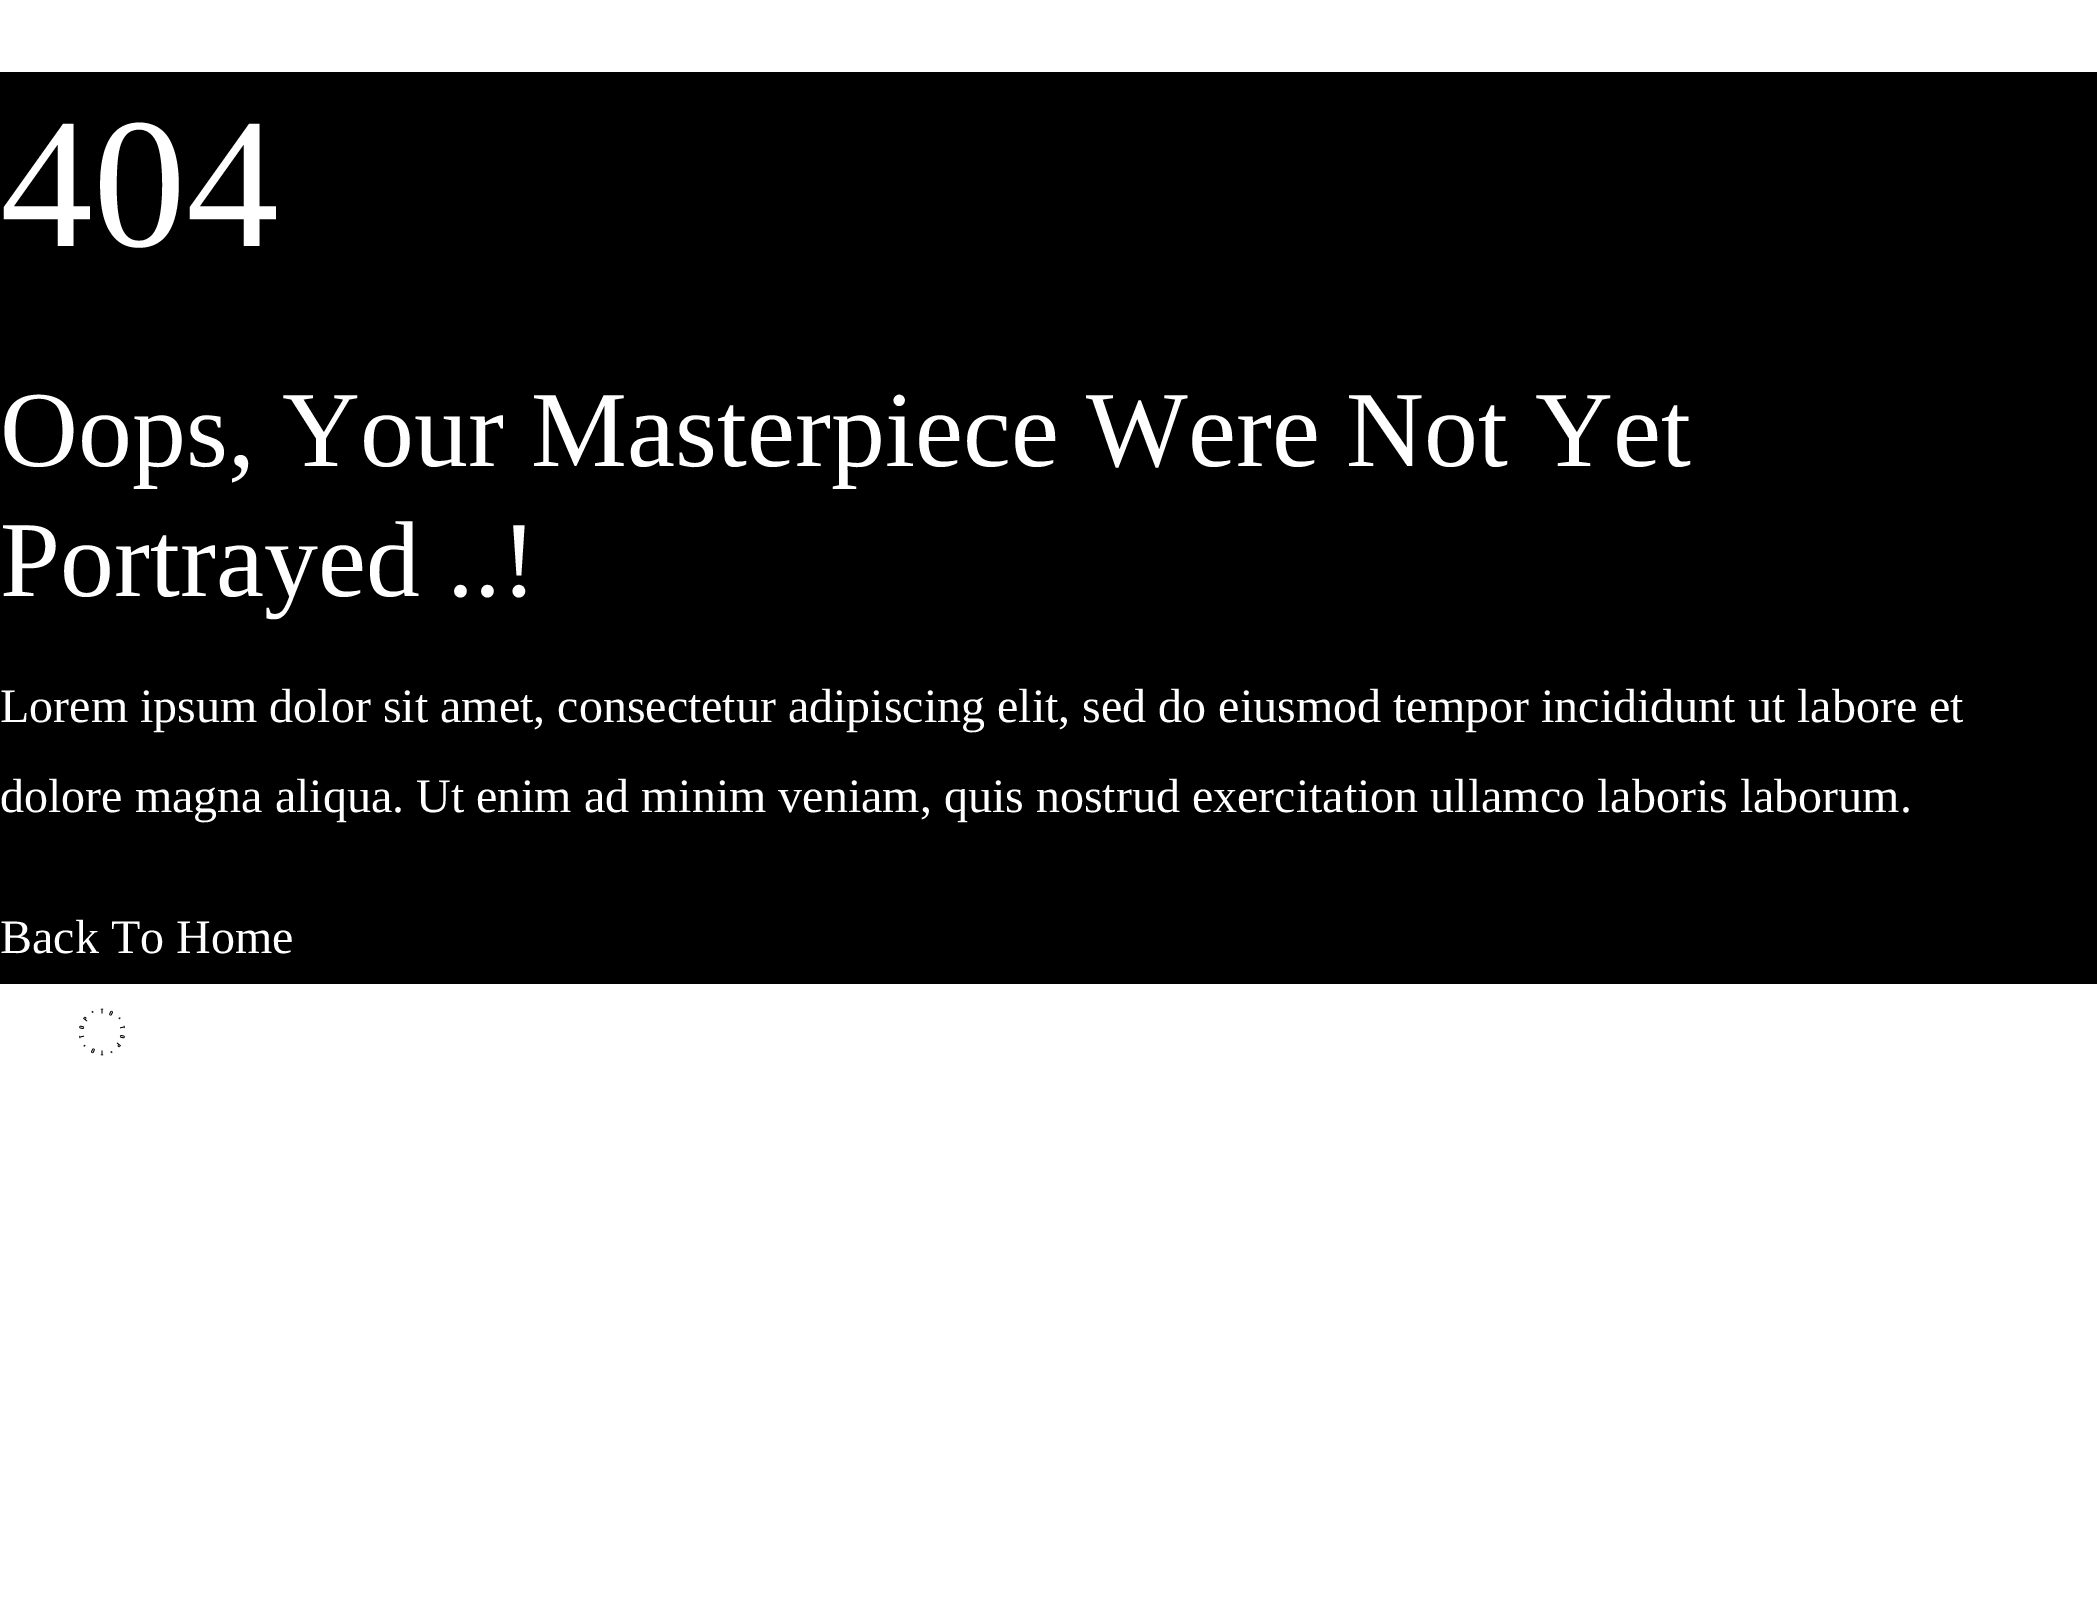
%!PS
<< /PageSize [2097 1608] >> setpagedevice
/C { dup -16 bitshift 255 div exch dup -8 bitshift 255 and 255 div exch 255 and 255 div setrgbcolor } def
/F { [ exch dup neg 0 0 3 -1 roll 0 0 ] selectfont } def
/T { moveto show } def
/R { rectfill } def
/I { 5 dict begin { /h /w /y /x /name } { exch def } forall
  gsave x y translate w h scale
  w h 8 [w 0 0 h 0 0] name (r) file false 3 colorimage grestore end } def
0 1608 translate 1 -1 scale
4 setmiterlimit
16#FFFFFF C
0 0 2097 1608 R
16#000000 C
0 72 2097 912 R
/LiberationSerif-Regular 186 F
16#FFFFFF C
(404) 0 246 T
/LiberationSerif-Regular 108 F
(Oops, Your Masterpiece Were Not Yet) 0 466 T
(Portrayed ..!) 0 596 T
/LiberationSerif-Regular 48 F
(Lorem ipsum dolor sit amet, consectetur adipiscing elit, sed do eiusmod tempor incididunt ut labore et) 0 722 T
(dolore magna aliqua. Ut enim ad minim veniam, quis nostrud exercitation ullamco laboris laborum.) 0 812 T
(Back To Home) 0 953 T
(1.rgb) 79 1008 46 48 I
showpage
